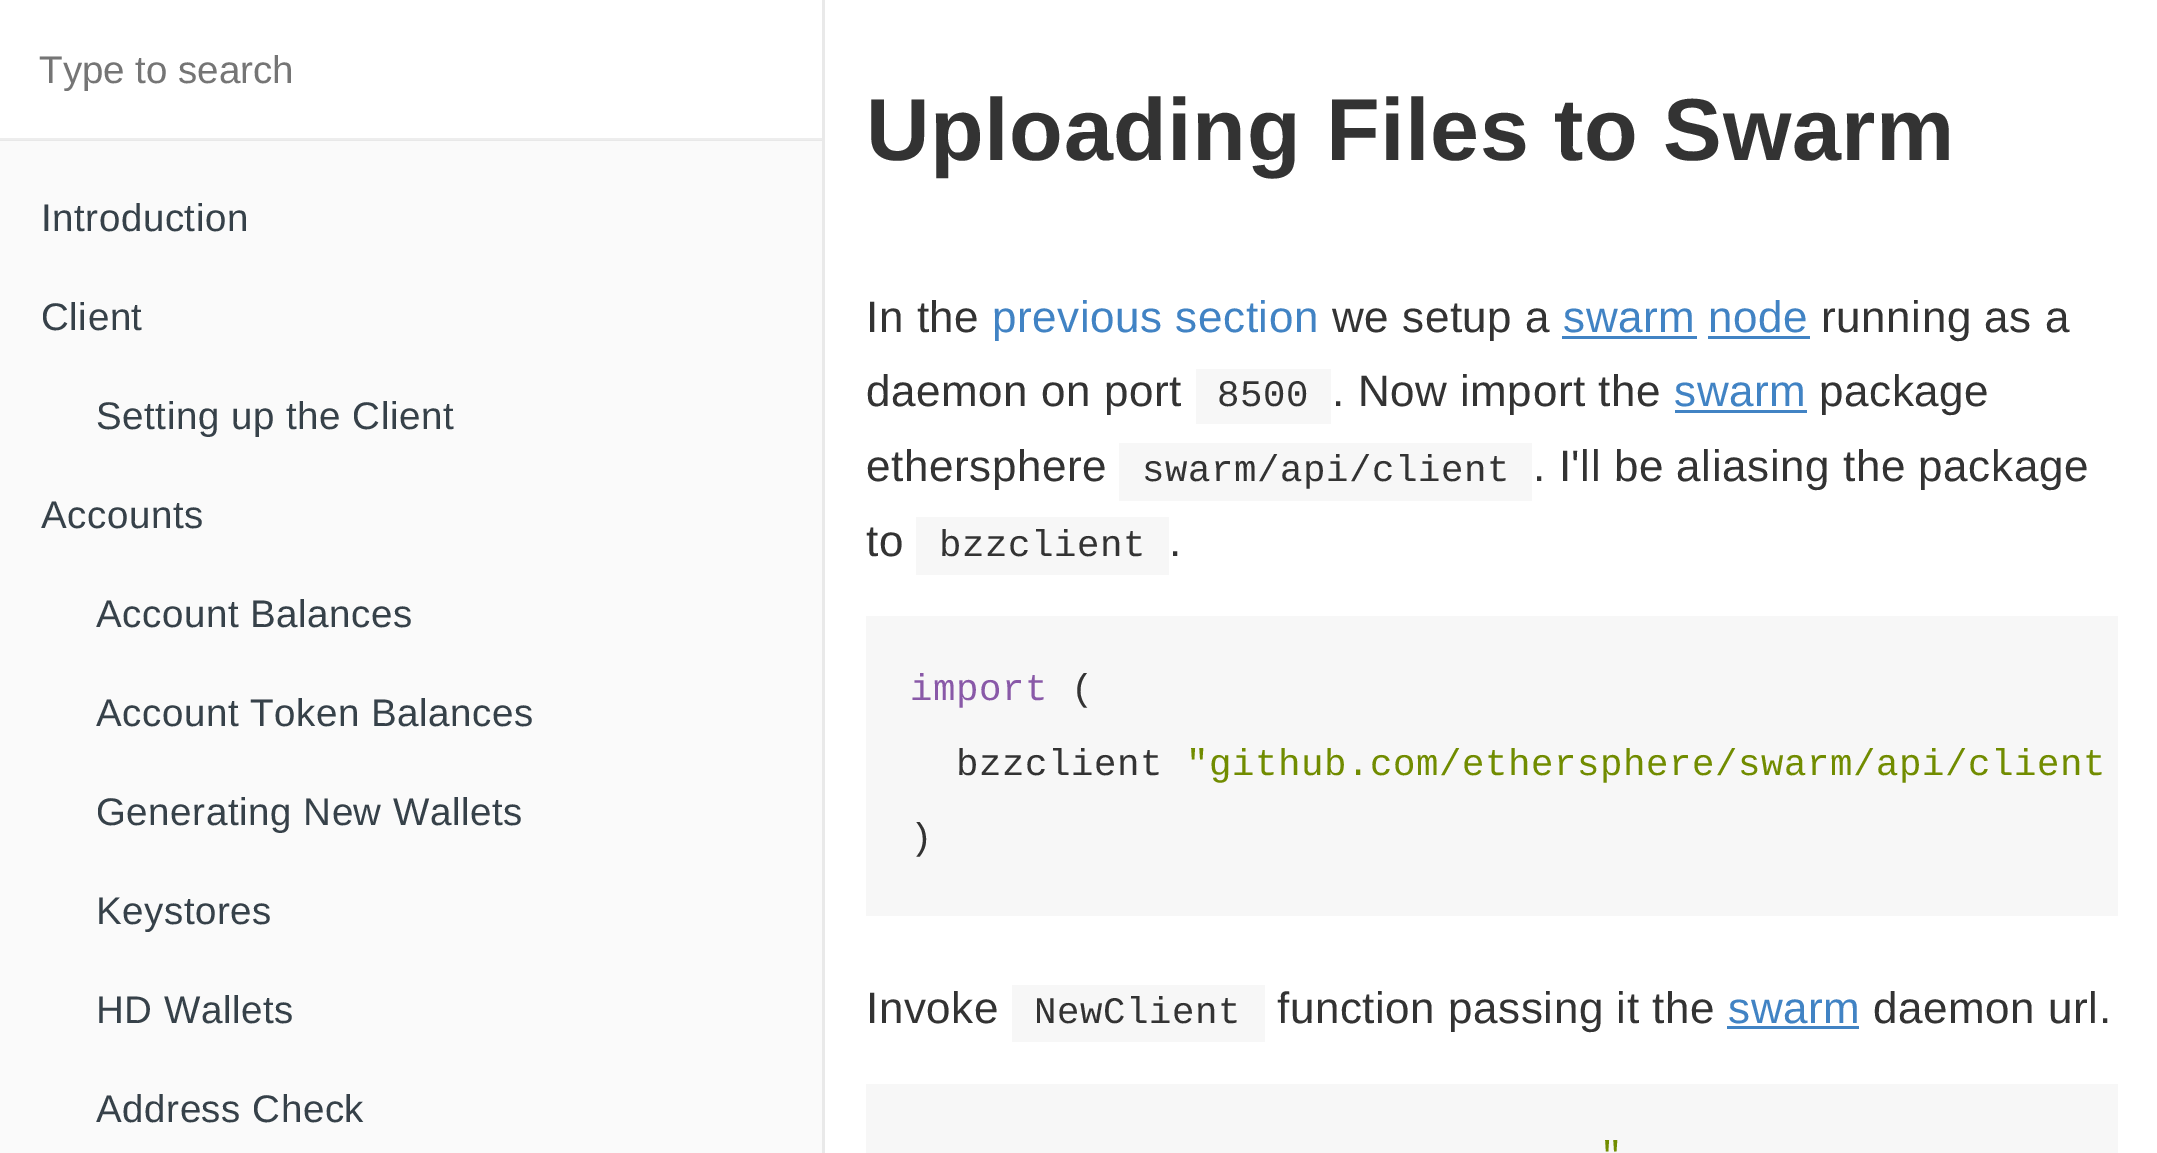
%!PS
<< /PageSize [2157 1153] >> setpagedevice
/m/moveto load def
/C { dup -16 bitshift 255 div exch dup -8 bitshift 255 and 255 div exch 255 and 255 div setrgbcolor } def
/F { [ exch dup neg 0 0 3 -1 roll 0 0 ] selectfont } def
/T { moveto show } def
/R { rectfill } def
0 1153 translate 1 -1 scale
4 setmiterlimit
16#FFFFFF C
0 0 2157 1153 R
16#FAFAFA C
0 141 822 1012 R
16#E8E8E8 C
0 140 822 1 R
16#E9E9E9 C
822 0 3 1153 R
16#EDEDED C
0 138 822 2 R
/LiberationSans-Regular 38.5 F
16#757575 C
(Type to search) 39 83 T
16#364149 C
41 231 m .55 0 (Introduction) ashow
41 330 m .55 0 (Client) ashow
96 429 m .55 0 (Setting up the Client) ashow
41 528 m .55 0 (Accounts) ashow
96 627 m .55 0 (Account Balances) ashow
96 726 m .55 0 (Account Token Balances) ashow
96 825 m .55 0 (Generating New Wallets) ashow
96 924 m .55 0 (Keystores) ashow
96 1023 m .55 0 (HD Wallets) ashow
96 1122 m .55 0 (Address Check) ashow
/LiberationSans-Bold 88 F
16#333333 C
866 160 m .55 0 (Uploading Files to Swarm) ashow
/LiberationSans-Regular 44 F
866 332 m .55 0 (In the) ashow
16#4183C4 C
992 332 m .55 0 (previous section) ashow
16#333333 C
1332 332 m .55 0 (we setup a) ashow
16#4183C4 C
1563 332 m .55 0 (swarm node) ashow
1562 336 135 3 R
16#333333 C
1821 332 m .55 0 (running as a) ashow
16#4183C4 C
1708 336 102 3 R
16#333333 C
866 406 m .55 0 (daemon on port) ashow
16#F7F7F7 C
1196 369 135 55 R
/LiberationMono-Regular 37.4 F
16#333333 C
1217 406 m .55 0 (8500) ashow
/LiberationSans-Regular 44 F
1332 406 m .55 0 (. Now import the) ashow
16#4183C4 C
1674 406 m .55 0 (swarm) ashow
1675 410 132 3 R
16#333333 C
1819 406 m .55 0 (package) ashow
866 481 m .55 0 (ethersphere) ashow
16#F7F7F7 C
1119 443 413 58 R
/LiberationMono-Regular 37.4 F
16#333333 C
1142 481 m .55 0 (swarm/api/client) ashow
/LiberationSans-Regular 44 F
1533 481 m .55 0 (. I'll be aliasing the package) ashow
866 556 m .55 0 (to) ashow
16#F7F7F7 C
916 517 253 58 R
/LiberationMono-Regular 37.4 F
16#333333 C
939 556 m .55 0 (bzzclient) ashow
/LiberationSans-Regular 44 F
1169 556 m .55 0 (.) ashow
16#F7F7F7 C
866 616 1252 300 R
/LiberationMono-Regular 37.4 F
16#8959A8 C
910 700 m .55 0 (import) ashow
16#333333 C
1071 700 m .55 0 (\() ashow
956 775 m .55 0 (bzzclient) ashow
16#718C00 C
1186 775 m .55 0 ("github.com/ethersphere/swarm/api/client) ashow
16#333333 C
910 849 m .55 0 (\)) ashow
/LiberationSans-Regular 44 F
866 1023 m .55 0 (Invoke) ashow
16#F7F7F7 C
1012 985 253 57 R
/LiberationMono-Regular 37.4 F
16#333333 C
1034 1023 m .55 0 (NewClient) ashow
/LiberationSans-Regular 44 F
1277 1023 m .55 0 (function passing it the) ashow
16#4183C4 C
1728 1023 m .55 0 (swarm) ashow
1727 1026 132 3 R
16#333333 C
1873 1023 m .55 0 (daemon url.) ashow
16#F7F7F7 C
866 1084 1252 69 R
/LiberationMono-Regular 37.4 F
16#718C00 C
1600 1167 m .55 0 (") ashow
showpage
